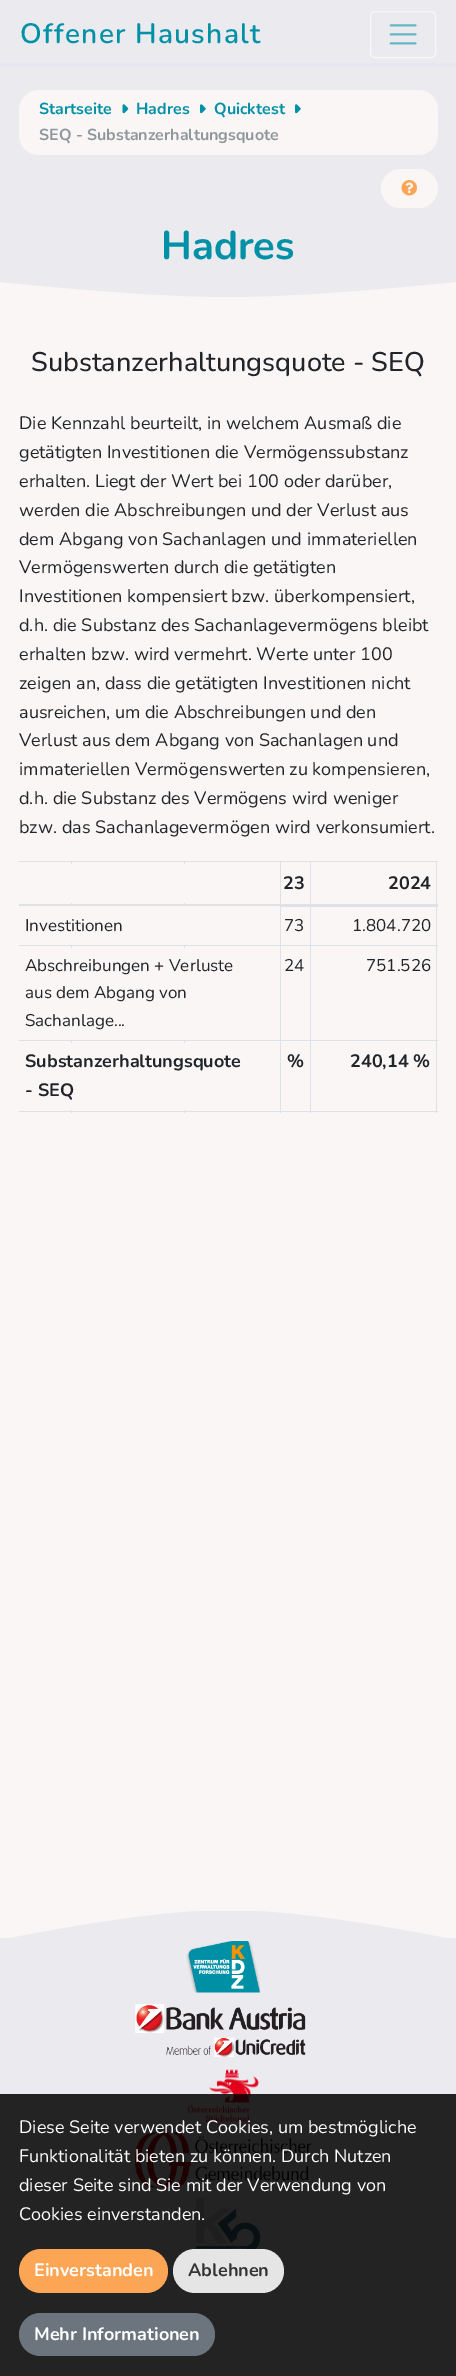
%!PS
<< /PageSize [456 2376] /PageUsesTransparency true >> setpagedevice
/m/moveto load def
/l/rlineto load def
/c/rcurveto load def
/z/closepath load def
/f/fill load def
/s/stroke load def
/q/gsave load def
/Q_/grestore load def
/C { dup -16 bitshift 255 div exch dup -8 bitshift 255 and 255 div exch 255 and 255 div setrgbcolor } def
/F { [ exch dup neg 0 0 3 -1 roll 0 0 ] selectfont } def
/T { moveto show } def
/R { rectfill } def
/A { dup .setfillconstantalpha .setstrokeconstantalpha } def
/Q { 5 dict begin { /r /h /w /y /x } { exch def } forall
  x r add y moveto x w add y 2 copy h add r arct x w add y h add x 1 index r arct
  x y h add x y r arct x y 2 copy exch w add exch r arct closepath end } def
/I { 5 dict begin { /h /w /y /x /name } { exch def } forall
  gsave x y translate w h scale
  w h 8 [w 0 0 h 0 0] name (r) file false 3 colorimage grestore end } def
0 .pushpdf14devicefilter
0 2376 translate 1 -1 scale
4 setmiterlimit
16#FAF6F6 C
0 0 456 2376 R
16#EBEAEF C
0 0 456 63 R
16#E8E6EE C
0 63 456 3 R
/Nunito-SemiBold 28 F
16#0091A6 C
20 43 m 1.25 0 (Offener Haushalt) ashow
16#FAF6F6 C
370.5 11.5 65 46 4.5 Q s
(1.rgb) 389 24 28 21 I
16#EBEAEF C
0 66 456 215 R
16#FAF6F6 C
19 90 419 65 20 Q f
/Nunito-Bold 16 F
16#0091A6 C
(Startseite) 39 114 T
(2.rgb) 122 104 7 10 I
(Hadres) 136 114 T
(3.rgb) 200 104 6 10 I
(Quicktest) 214 114 T
(3.rgb) 295 104 6 10 I
16#8E989C C
(SEQ - Substanzerhaltungsquote) 39 140 T
16#FAF6F6 C
381 169 57 39 19.5 Q f
(4.rgb) 401 180 16 16 I
/Nunito-Bold 40 F
16#0091A6 C
(Hadres) 161 259 T
q
0 281 456 17 rectclip
16#EBEAEF C
0 199 m 456 0 l 0 83 l -101 10 -177 15 -228 15 c -51 0 -127 -5 -228 -15 c z eofill
Q_
/Nunito-Medium 27 F
16#212529 C
(Substanzerhaltungsquote - SEQ) 31 371 T
/Nunito-Regular 18 F
(Die Kennzahl beurteilt, in welchem Ausmaß die) 19 429 T
(getätigten Investitionen die Vermögenssubstanz) 19 458 T
(erhalten. Liegt der Wert bei 100 oder darüber,) 19 487 T
(werden die Abschreibungen und der Verlust aus) 19 516 T
(dem Abgang von Sachanlagen und immateriellen) 19 545 T
(Vermögenswerten durch die getätigten) 19 573 T
(Investitionen kompensiert bzw. überkompensiert,) 19 602 T
(d.h. die Substanz des Sachanlagevermögens bleibt) 19 631 T
(erhalten bzw. wird vermehrt. Werte unter 100) 19 660 T
(zeigen an, dass die getätigten Investitionen nicht) 19 689 T
(ausreichen, um die Abschreibungen und den) 19 718 T
(Verlust aus dem Abgang von Sachanlagen und) 19 746 T
(immateriellen Vermögenswerten zu kompensieren,) 19 775 T
(d.h. die Substanz des Vermögens wird weniger) 19 804 T
(bzw. das Sachanlagevermögen wird verkonsumiert.) 19 833 T
16#DEE2E6 C
310 861 128 1 R
310 945 128 1 R
310 1040 128 1 R
436 1040 1 73 R
310 1111 128 1 R
310 1040 1 73 R
184 1040 127 1 R
310 945 1 96 R
184 945 127 1 R
310 904 1 42 R
310 861 1 44 R
184 861 127 1 R
184 861 1 44 R
71 861 114 1 R
71 861 1 44 R
184 1111 127 1 R
280 1040 1 73 R
280 904 1 137 R
280 861 1 44 R
436 904 1 137 R
436 861 1 44 R
184 904 254 3 R
19 904 167 2 R
19 861 54 1 R
16#FAF6F6 C
71 864 114 39 R
/Nunito-Bold 18 F
16#212529 C
(23) 283 889 T
(2024) 388 889 T
16#FAF6F6 C
184 906 96 1 R
/Nunito-Regular 17 F
16#212529 C
(Investitionen) 25 931 T
(73) 284 931 T
(1.804.720) 352 931 T
16#DEE2E6 C
184 1040 1 73 R
71 1040 114 1 R
184 945 1 96 R
71 945 114 1 R
71 1111 114 1 R
71 1040 1 73 R
19 1040 54 1 R
71 945 1 96 R
19 945 54 1 R
16#FAF6F6 C
71 948 114 92 R
16#212529 C
(Abschreibungen + Verluste) 25 971 T
(aus dem Abgang von) 25 998 T
(Sachanlage...) 25 1026 T
(24) 284 971 T
(751.526) 366 971 T
16#DEE2E6 C
19 1111 54 1 R
16#FAF6F6 C
71 1043 114 67 R
/Nunito-Bold 18 F
16#212529 C
(Substanzerhaltungsquote) 25 1067 T
(- SEQ) 25 1096 T
(%) 287 1067 T
(240,14 %) 350 1067 T
16#EBEAEF C
0 1938 456 438 R
q
0 1911 456 30 rectclip
456 1997 m -456 0 l 0 -57 l 101 -20 177 -30 228 -30 c 51 0 127 10 228 30 c z eofill
Q_
(5.rgb) 186 1941 74 52 I
(6.rgb) 135 2004 171 53 I
(7.rgb) 187 2069 72 53 I
(8.rgb) 135 2132 177 56 I
(9.rgb) 196 2197 64 52 I
0.85 A
16#000000 C
0 2094 456 282 R
/Nunito-Regular 18 F
1 A
16#FFFFFF C
(Diese Seite verwendet Cookies, um bestmögliche) 19 2133 T
(Funktionalität bieten zu können. Durch Nutzen) 19 2162 T
(dieser Seite sind Sie mit der Verwendung von) 19 2191 T
(Cookies einverstanden.) 19 2220 T
16#FCA655 C
19 2249 149 44 22 Q f
/Nunito-Bold 18 F
16#FFFFFF C
(Einverstanden) 34 2276 T
16#E5E5E5 C
173 2249 111 44 22 Q f
16#333333 C
(Ablehnen) 188 2276 T
16#6C757D C
19 2313 196 43 21.5 Q f
16#FFFFFF C
(Mehr Informationen) 34 2340 T
.poppdf14devicefilter showpage
